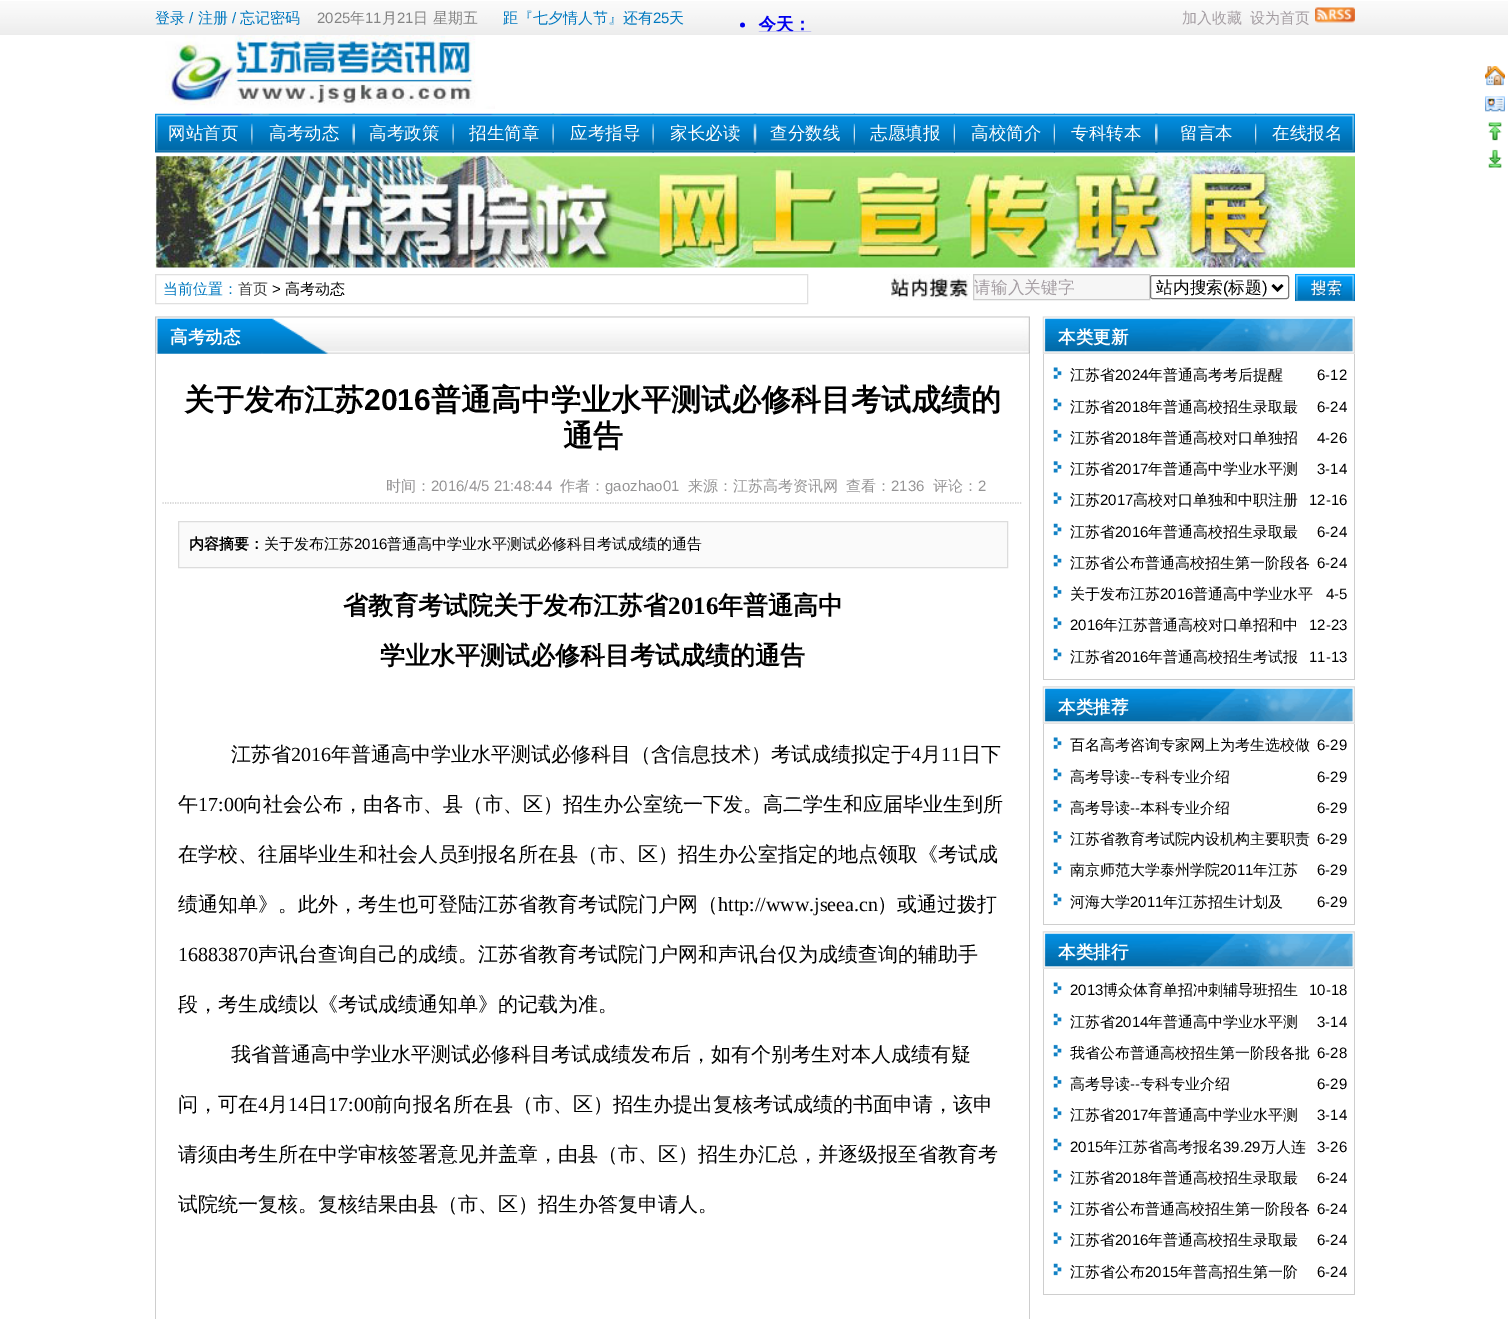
%!PS
<< /PageSize [1508 1319] >> setpagedevice
/m/moveto load def
/l/rlineto load def
/z/closepath load def
/f/fill load def
/s/stroke load def
/q/gsave load def
/Q_/grestore load def
/w/setlinewidth load def
/C { dup -16 bitshift 255 div exch dup -8 bitshift 255 and 255 div exch 255 and 255 div setrgbcolor } def
/F { [ exch dup neg 0 0 3 -1 roll 0 0 ] selectfont } def
/T { moveto show } def
/R { rectfill } def
/Q { 5 dict begin { /r /h /w /y /x } { exch def } forall
  x r add y moveto x w add y 2 copy h add r arct x w add y h add x 1 index r arct
  x y h add x y r arct x y 2 copy exch w add exch r arct closepath end } def
/I { 5 dict begin { /h /w /y /x /name } { exch def } forall
  gsave x y translate w h scale
  w h 8 [w 0 0 h 0 0] name (r) file false 3 colorimage grestore end } def
0 1319 translate 1 -1 scale
4 setmiterlimit
16#FFFFFF C
0 0 1508 1319 R
(1.rgb) 0 1 1508 34 I
/WenQuanYiZenHei-Medium 15 F
16#0078BF C
(登录) 155 23 T
/LiberationSans-Regular 15 F
(/) 189 23 T
/WenQuanYiZenHei-Medium 15 F
(注册) 198 23 T
/LiberationSans-Regular 15 F
(/) 232 23 T
/WenQuanYiZenHei-Medium 15 F
(忘记密码) 240 23 T
/LiberationSans-Regular 15 F
16#848484 C
(2025) 317 23 T
/WenQuanYiZenHei-Medium 15 F
(年) 350 23 T
/LiberationSans-Regular 15 F
(11) 365 23 T
/WenQuanYiZenHei-Medium 15 F
(月) 382 23 T
/LiberationSans-Regular 15 F
(21) 397 23 T
/WenQuanYiZenHei-Medium 15 F
(日) 413 23 T
(星期五) 433 23 T
16#0078BF C
(距『七夕情人节』还有) 503 23 T
/LiberationSans-Regular 15 F
(25) 653 23 T
/WenQuanYiZenHei-Medium 15 F
(天) 669 23 T
(2.rgb) 740 15 72 17 I
16#A59EA3 C
(加入收藏) 1182 23 T
(设为首页) 1250 23 T
(3.rgb) 1315 7 40 16 I
(4.rgb) 165 35 330 74 I
(5.rgb) 155 113 1200 40 I
/WenQuanYiZenHei-Medium 17.5 F
16#FFFFFF C
(网站首页) 168 139 T
(6.rgb) 251 113 2 40 I
(高考动态) 269 139 T
(7.rgb) 352 113 3 40 I
(高考政策) 369 139 T
(8.rgb) 452 113 2 40 I
(招生简章) 469 139 T
(9.rgb) 552 113 2 40 I
(应考指导) 570 139 T
(10.rgb) 652 113 2 40 I
(家长必读) 670 139 T
(11.rgb) 753 113 4 40 I
(查分数线) 770 139 T
(12.rgb) 853 113 2 40 I
(志愿填报) 870 139 T
(12.rgb) 953 113 2 40 I
(高校简介) 971 139 T
(12.rgb) 1053 113 2 40 I
(专科转本) 1071 139 T
(13.rgb) 1155 113 3 40 I
(留言本) 1180 139 T
(14.rgb) 1255 113 2 40 I
(在线报名) 1272 139 T
(15.rgb) 155 156 1200 112 I
16#E0E0E0 C
155.5 274.5 652 29 rectstroke
/WenQuanYiZenHei-Medium 15 F
16#0078BF C
(当前位置：) 163 294 T
16#444444 C
(首页) 238 294 T
/LiberationSans-Regular 15 F
16#000000 C
(>) 272 294 T
/WenQuanYiZenHei-Medium 15 F
(高考动态) 285 294 T
(16.rgb) 891 274 79 26 I
16#F6F6F6 C
973.5 274.5 m 176 0 l 0 25 l -176 0 l z q f Q_
16#CCCCCC C
s
/WenQuanYiZenHei-Medium 16.75 F
16#A59EA3 C
(请输入关键字) 974 293 T
16#767676 C
1150.5 275.5 138 23 2 Q s
16#000000 C
2.5 w
1272.5 285 m 5 5 l 5 -5 l s
(站内搜索) 1156 293 T
/LiberationSans-Regular 16.75 F
(\() 1223 293 T
/WenQuanYiZenHei-Medium 16.75 F
(标题) 1228 293 T
/LiberationSans-Regular 16.75 F
(\)) 1262 293 T
(17.rgb) 1295 273 60 29 I
(18.rgb) 155 316 875 38 I
/WenQuanYiZenHei-Bold 17.5 F
16#FFFFFF C
(高考动态) 170 343 T
16#CECECE C
1029 354 1 965 R
155 354 1 965 R
16#CCCCCC C
1.2 w
[1.25 1.25] 0 setdash
162.5 503 m 860 0 l s
/WenQuanYiZenHei-Bold 30 F
16#000000 C
(关于发布江苏) 184 410 T
/LiberationSans-Bold 30 F
(2016) 364 410 T
/WenQuanYiZenHei-Bold 30 F
(普通高中学业水平测试必修科目考试成绩的) 431 410 T
(通告) 563 446 T
/WenQuanYiZenHei-Medium 15 F
16#959495 C
(时间：) 386 491 T
/LiberationSans-Regular 15 F
(2016/4/5 21:48:44) 431 491 T
/WenQuanYiZenHei-Medium 15 F
(作者：) 560 491 T
/LiberationSans-Regular 15 F
(gaozhao01) 605 491 T
/WenQuanYiZenHei-Medium 15 F
(来源：江苏高考资讯网) 688 491 T
(查看：) 846 491 T
/LiberationSans-Regular 15 F
(2136) 891 491 T
/WenQuanYiZenHei-Medium 15 F
(评论：) 933 491 T
/LiberationSans-Regular 15 F
(2) 978 491 T
16#FAFAFA C
178.5 521.5 m 829 0 l 0 46 l -829 0 l z q f Q_
16#DCDCDC C
1 w
[] 0 setdash
s
/WenQuanYiZenHei-Bold 15 F
16#000000 C
(内容摘要：) 189 549 T
/WenQuanYiZenHei-Medium 15 F
(关于发布江苏) 264 549 T
/LiberationSans-Regular 15 F
(2016) 354 549 T
/WenQuanYiZenHei-Medium 15 F
(普通高中学业水平测试必修科目考试成绩的通告) 387 549 T
/WenQuanYiZenHei-Bold 25 F
(省教育考试院关于发布江苏省) 343 614 T
/LiberationSerif-Bold 25 F
(2016) 668 614 T
/WenQuanYiZenHei-Bold 25 F
(年普通高中) 718 614 T
(学业水平测试必修科目考试成绩的通告) 380 664 T
/WenQuanYiZenHei-Medium 20 F
(江苏省) 231 761 T
/LiberationSerif-Regular 20 F
(2016) 291 761 T
/WenQuanYiZenHei-Medium 20 F
(年普通高中学业水平测试必修科目（含信息技术）考试成绩拟定于) 331 761 T
/LiberationSerif-Regular 20 F
(4) 911 761 T
/WenQuanYiZenHei-Medium 20 F
(月) 921 761 T
/LiberationSerif-Regular 20 F
(11) 941 761 T
/WenQuanYiZenHei-Medium 20 F
(日下) 961 761 T
(午) 178 811 T
/LiberationSerif-Regular 20 F
(17:00) 198 811 T
/WenQuanYiZenHei-Medium 20 F
(向社会公布，由各市、县（市、区）招生办公室统一下发。高二学生和应届毕业生到所) 243 811 T
(在学校、往届毕业生和社会人员到报名所在县（市、区）招生办公室指定的地点领取《考试成) 178 861 T
(绩通知单》。此外，考生也可登陆江苏省教育考试院门户网（) 178 911 T
/LiberationSerif-Regular 20 F
(http://www.jseea.cn) 718 911 T
/WenQuanYiZenHei-Medium 20 F
(）或通过拨打) 877 911 T
/LiberationSerif-Regular 20 F
(16883870) 178 961 T
/WenQuanYiZenHei-Medium 20 F
(声讯台查询自己的成绩。江苏省教育考试院门户网和声讯台仅为成绩查询的辅助手) 258 961 T
(段，考生成绩以《考试成绩通知单》的记载为准。) 178 1011 T
(我省普通高中学业水平测试必修科目考试成绩发布后，如有个别考生对本人成绩有疑) 231 1061 T
(问，可在) 178 1111 T
/LiberationSerif-Regular 20 F
(4) 258 1111 T
/WenQuanYiZenHei-Medium 20 F
(月) 268 1111 T
/LiberationSerif-Regular 20 F
(14) 288 1111 T
/WenQuanYiZenHei-Medium 20 F
(日) 308 1111 T
/LiberationSerif-Regular 20 F
(17:00) 328 1111 T
/WenQuanYiZenHei-Medium 20 F
(前向报名所在县（市、区）招生办提出复核考试成绩的书面申请，该申) 373 1111 T
(请须由考生所在中学审核签署意见并盖章，由县（市、区）招生办汇总，并逐级报至省教育考) 178 1161 T
(试院统一复核。复核结果由县（市、区）招生办答复申请人。) 178 1211 T
(19.rgb) 1042 316 313 38 I
/WenQuanYiZenHei-Bold 17.5 F
16#FFFFFF C
(本类更新) 1058 343 T
16#CECECE C
1354 354 1 326 R
1043 679 312 1 R
1043 354 1 326 R
(20.rgb) 1053 367 9 12 I
/WenQuanYiZenHei-Medium 15 F
16#000000 C
(江苏省) 1070 380 T
/LiberationSans-Regular 15 F
(2024) 1115 380 T
/WenQuanYiZenHei-Medium 15 F
(年普通高考考后提醒) 1148 380 T
/LiberationSans-Regular 15 F
(6-12) 1317 380 T
(21.rgb) 1053 398 9 13 I
/WenQuanYiZenHei-Medium 15 F
(江苏省) 1070 412 T
/LiberationSans-Regular 15 F
(2018) 1115 412 T
/WenQuanYiZenHei-Medium 15 F
(年普通高校招生录取最) 1148 412 T
/LiberationSans-Regular 15 F
(6-24) 1317 412 T
(22.rgb) 1053 429 9 13 I
/WenQuanYiZenHei-Medium 15 F
(江苏省) 1070 443 T
/LiberationSans-Regular 15 F
(2018) 1115 443 T
/WenQuanYiZenHei-Medium 15 F
(年普通高校对口单独招) 1148 443 T
/LiberationSans-Regular 15 F
(4-26) 1317 443 T
(23.rgb) 1053 461 9 12 I
/WenQuanYiZenHei-Medium 15 F
(江苏省) 1070 474 T
/LiberationSans-Regular 15 F
(2017) 1115 474 T
/WenQuanYiZenHei-Medium 15 F
(年普通高中学业水平测) 1148 474 T
/LiberationSans-Regular 15 F
(3-14) 1317 474 T
(20.rgb) 1053 492 9 12 I
/WenQuanYiZenHei-Medium 15 F
(江苏) 1070 505 T
/LiberationSans-Regular 15 F
(2017) 1100 505 T
/WenQuanYiZenHei-Medium 15 F
(高校对口单独和中职注册) 1133 505 T
/LiberationSans-Regular 15 F
(12-16) 1309 505 T
(21.rgb) 1053 523 9 13 I
/WenQuanYiZenHei-Medium 15 F
(江苏省) 1070 537 T
/LiberationSans-Regular 15 F
(2016) 1115 537 T
/WenQuanYiZenHei-Medium 15 F
(年普通高校招生录取最) 1148 537 T
/LiberationSans-Regular 15 F
(6-24) 1317 537 T
(22.rgb) 1053 554 9 13 I
/WenQuanYiZenHei-Medium 15 F
(江苏省公布普通高校招生第一阶段各) 1070 568 T
/LiberationSans-Regular 15 F
(6-24) 1317 568 T
(24.rgb) 1053 586 9 12 I
/WenQuanYiZenHei-Medium 15 F
(关于发布江苏) 1070 599 T
/LiberationSans-Regular 15 F
(2016) 1160 599 T
/WenQuanYiZenHei-Medium 15 F
(普通高中学业水平) 1193 599 T
/LiberationSans-Regular 15 F
(4-5) 1326 599 T
(20.rgb) 1053 617 9 12 I
(2016) 1070 630 T
/WenQuanYiZenHei-Medium 15 F
(年江苏普通高校对口单招和中) 1103 630 T
/LiberationSans-Regular 15 F
(12-23) 1309 630 T
(21.rgb) 1053 648 9 13 I
/WenQuanYiZenHei-Medium 15 F
(江苏省) 1070 662 T
/LiberationSans-Regular 15 F
(2016) 1115 662 T
/WenQuanYiZenHei-Medium 15 F
(年普通高校招生考试报) 1148 662 T
/LiberationSans-Regular 15 F
(11-13) 1309 662 T
(25.rgb) 1042 686 313 38 I
/WenQuanYiZenHei-Bold 17.5 F
16#FFFFFF C
(本类推荐) 1058 713 T
16#CECECE C
1354 724 1 201 R
1043 924 312 1 R
1043 724 1 201 R
(20.rgb) 1053 737 9 12 I
/WenQuanYiZenHei-Medium 15 F
16#000000 C
(百名高考咨询专家网上为考生选校做) 1070 750 T
/LiberationSans-Regular 15 F
(6-29) 1317 750 T
(21.rgb) 1053 768 9 13 I
/WenQuanYiZenHei-Medium 15 F
(高考导读) 1070 782 T
/LiberationSans-Regular 15 F
(--) 1130 782 T
/WenQuanYiZenHei-Medium 15 F
(专科专业介绍) 1140 782 T
/LiberationSans-Regular 15 F
(6-29) 1317 782 T
(22.rgb) 1053 799 9 13 I
/WenQuanYiZenHei-Medium 15 F
(高考导读) 1070 813 T
/LiberationSans-Regular 15 F
(--) 1130 813 T
/WenQuanYiZenHei-Medium 15 F
(本科专业介绍) 1140 813 T
/LiberationSans-Regular 15 F
(6-29) 1317 813 T
(23.rgb) 1053 831 9 12 I
/WenQuanYiZenHei-Medium 15 F
(江苏省教育考试院内设机构主要职责) 1070 844 T
/LiberationSans-Regular 15 F
(6-29) 1317 844 T
(20.rgb) 1053 862 9 12 I
/WenQuanYiZenHei-Medium 15 F
(南京师范大学泰州学院) 1070 875 T
/LiberationSans-Regular 15 F
(2011) 1220 875 T
/WenQuanYiZenHei-Medium 15 F
(年江苏) 1253 875 T
/LiberationSans-Regular 15 F
(6-29) 1317 875 T
(21.rgb) 1053 893 9 13 I
/WenQuanYiZenHei-Medium 15 F
(河海大学) 1070 907 T
/LiberationSans-Regular 15 F
(2011) 1130 907 T
/WenQuanYiZenHei-Medium 15 F
(年江苏招生计划及) 1163 907 T
/LiberationSans-Regular 15 F
(6-29) 1317 907 T
(25.rgb) 1042 931 313 38 I
/WenQuanYiZenHei-Bold 17.5 F
16#FFFFFF C
(本类排行) 1058 958 T
16#CECECE C
1354 969 1 326 R
1043 1294 312 1 R
1043 969 1 326 R
(20.rgb) 1053 982 9 12 I
/LiberationSans-Regular 15 F
16#000000 C
(2013) 1070 995 T
/WenQuanYiZenHei-Medium 15 F
(博众体育单招冲刺辅导班招生) 1103 995 T
/LiberationSans-Regular 15 F
(10-18) 1309 995 T
(21.rgb) 1053 1013 9 13 I
/WenQuanYiZenHei-Medium 15 F
(江苏省) 1070 1027 T
/LiberationSans-Regular 15 F
(2014) 1115 1027 T
/WenQuanYiZenHei-Medium 15 F
(年普通高中学业水平测) 1148 1027 T
/LiberationSans-Regular 15 F
(3-14) 1317 1027 T
(22.rgb) 1053 1044 9 13 I
/WenQuanYiZenHei-Medium 15 F
(我省公布普通高校招生第一阶段各批) 1070 1058 T
/LiberationSans-Regular 15 F
(6-28) 1317 1058 T
(23.rgb) 1053 1076 9 12 I
/WenQuanYiZenHei-Medium 15 F
(高考导读) 1070 1089 T
/LiberationSans-Regular 15 F
(--) 1130 1089 T
/WenQuanYiZenHei-Medium 15 F
(专科专业介绍) 1140 1089 T
/LiberationSans-Regular 15 F
(6-29) 1317 1089 T
(20.rgb) 1053 1107 9 12 I
/WenQuanYiZenHei-Medium 15 F
(江苏省) 1070 1120 T
/LiberationSans-Regular 15 F
(2017) 1115 1120 T
/WenQuanYiZenHei-Medium 15 F
(年普通高中学业水平测) 1148 1120 T
/LiberationSans-Regular 15 F
(3-14) 1317 1120 T
(21.rgb) 1053 1138 9 13 I
(2015) 1070 1152 T
/WenQuanYiZenHei-Medium 15 F
(年江苏省高考报名) 1103 1152 T
/LiberationSans-Regular 15 F
(39.29) 1223 1152 T
/WenQuanYiZenHei-Medium 15 F
(万人连) 1261 1152 T
/LiberationSans-Regular 15 F
(3-26) 1317 1152 T
(26.rgb) 1053 1169 9 13 I
/WenQuanYiZenHei-Medium 15 F
(江苏省) 1070 1183 T
/LiberationSans-Regular 15 F
(2018) 1115 1183 T
/WenQuanYiZenHei-Medium 15 F
(年普通高校招生录取最) 1148 1183 T
/LiberationSans-Regular 15 F
(6-24) 1317 1183 T
(23.rgb) 1053 1201 9 12 I
/WenQuanYiZenHei-Medium 15 F
(江苏省公布普通高校招生第一阶段各) 1070 1214 T
/LiberationSans-Regular 15 F
(6-24) 1317 1214 T
(20.rgb) 1053 1232 9 12 I
/WenQuanYiZenHei-Medium 15 F
(江苏省) 1070 1245 T
/LiberationSans-Regular 15 F
(2016) 1115 1245 T
/WenQuanYiZenHei-Medium 15 F
(年普通高校招生录取最) 1148 1245 T
/LiberationSans-Regular 15 F
(6-24) 1317 1245 T
(21.rgb) 1053 1263 9 13 I
/WenQuanYiZenHei-Medium 15 F
(江苏省公布) 1070 1277 T
/LiberationSans-Regular 15 F
(2015) 1145 1277 T
/WenQuanYiZenHei-Medium 15 F
(年普高招生第一阶) 1178 1277 T
/LiberationSans-Regular 15 F
(6-24) 1317 1277 T
(27.rgb) 1485 66 20 20 I
(28.rgb) 1485 96 20 16 I
(29.rgb) 1488 122 14 19 I
(30.rgb) 1488 149 14 19 I
showpage
